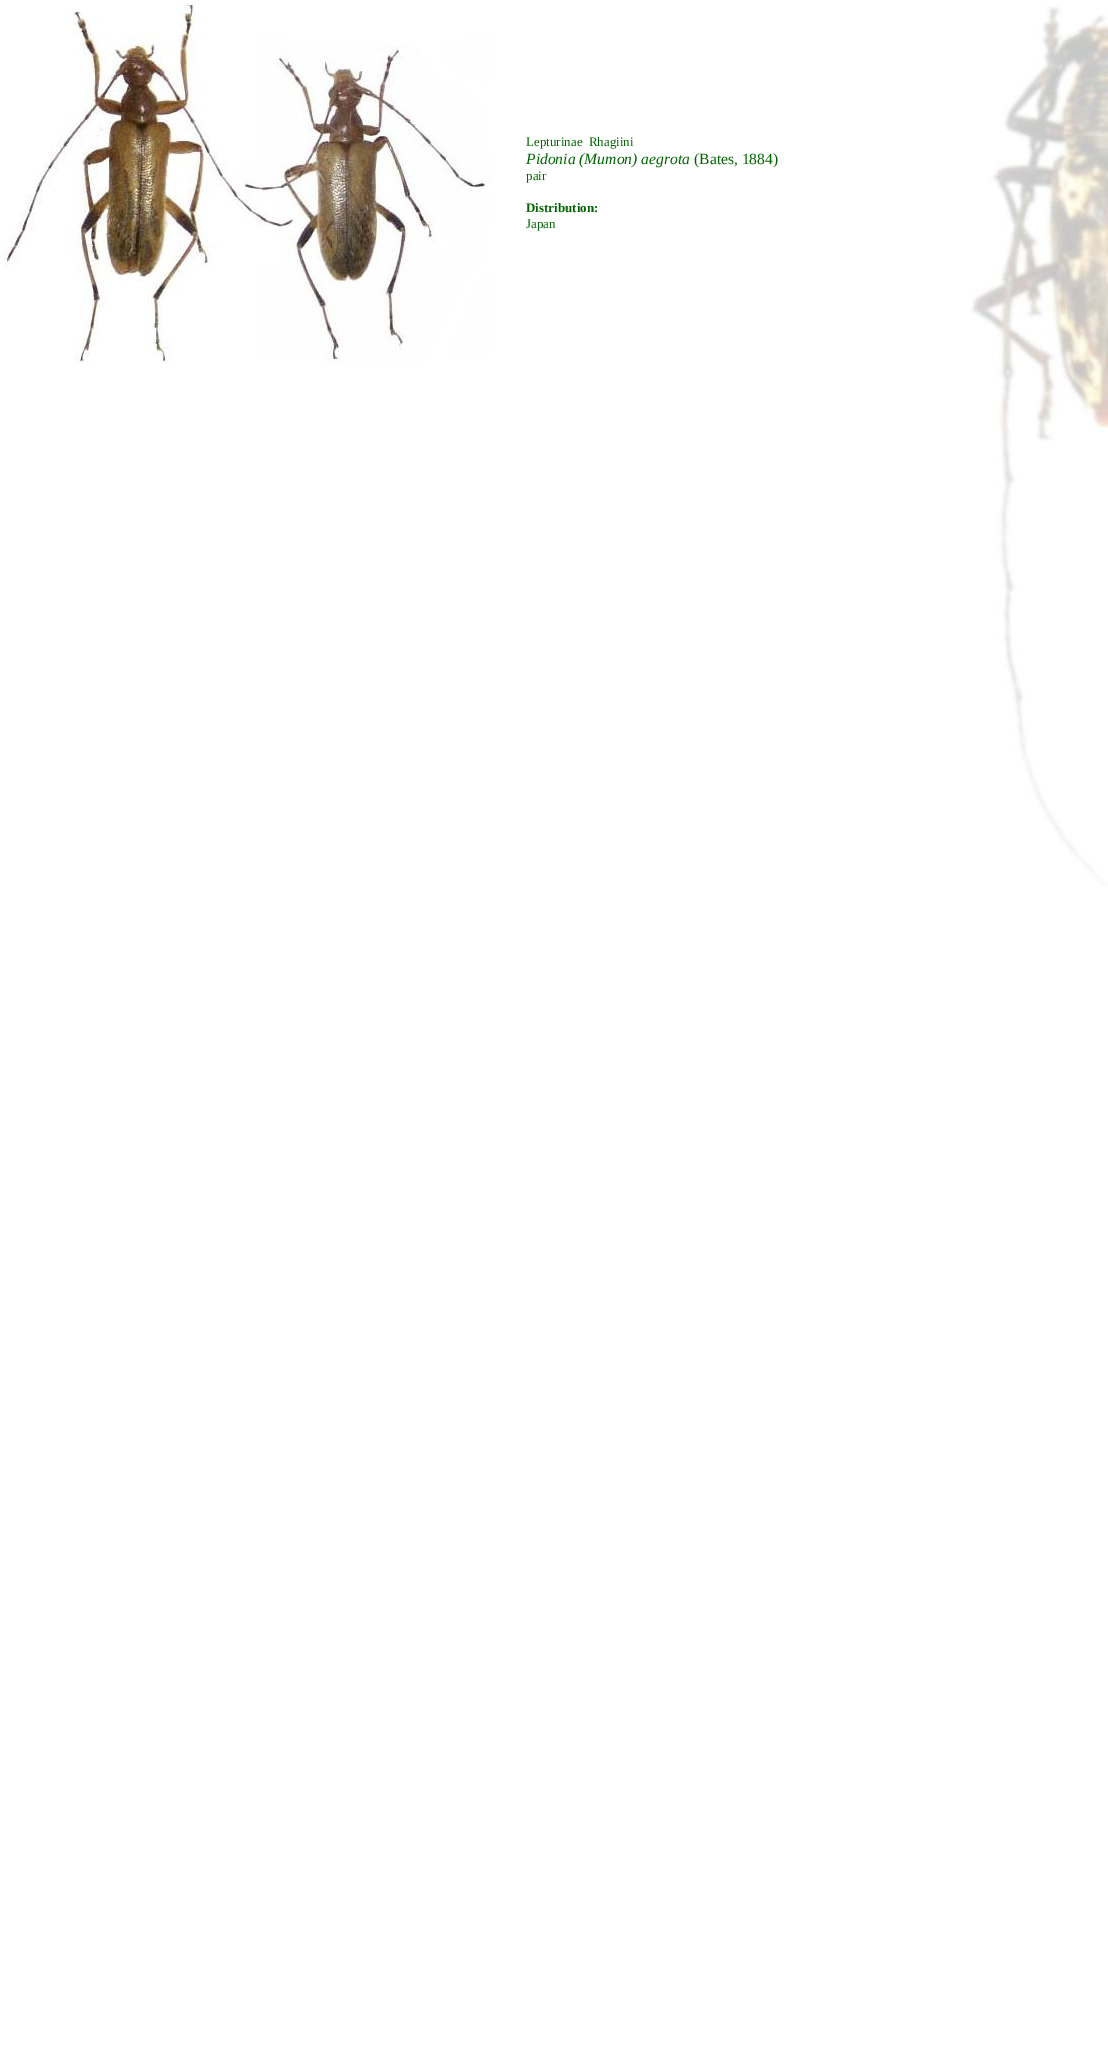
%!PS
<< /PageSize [1108 2053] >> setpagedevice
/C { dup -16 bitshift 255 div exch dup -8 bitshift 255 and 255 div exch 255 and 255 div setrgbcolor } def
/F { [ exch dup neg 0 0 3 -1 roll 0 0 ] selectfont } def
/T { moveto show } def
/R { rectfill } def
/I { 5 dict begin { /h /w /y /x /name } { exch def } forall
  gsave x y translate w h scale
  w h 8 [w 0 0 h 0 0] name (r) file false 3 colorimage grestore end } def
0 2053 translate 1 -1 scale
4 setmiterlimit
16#FFFFFF C
0 0 1108 2053 R
(1.rgb) 971 6 137 880 I
(2.rgb) 3 3 487 360 I
/LiberationSerif-Regular 13 F
16#006400 C
(Lepturinae  Rhagiini) 526 146 T
/LiberationSerif-Italic 15.6 F
(Pidonia \(Mumon\) aegrota) 526 164 T
/LiberationSerif-Regular 15.6 F
(\(Bates, 1884\)) 694 164 T
/LiberationSerif-Regular 13 F
(pair) 526 180 T
/LiberationSerif-Bold 13 F
(Distribution:) 526 212 T
/LiberationSerif-Regular 13 F
(Japan) 526 228 T
showpage
